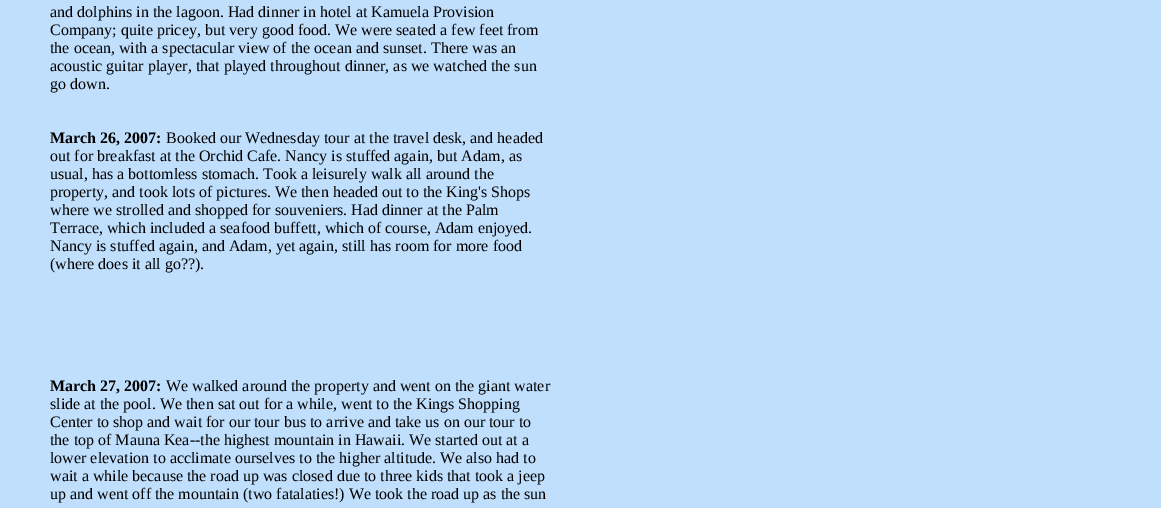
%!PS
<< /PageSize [1161 508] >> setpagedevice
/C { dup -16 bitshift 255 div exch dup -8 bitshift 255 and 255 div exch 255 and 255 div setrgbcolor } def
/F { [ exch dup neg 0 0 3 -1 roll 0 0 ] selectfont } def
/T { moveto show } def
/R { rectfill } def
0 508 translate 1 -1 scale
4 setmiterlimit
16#C0DFFD C
0 0 1161 508 R
/LiberationSerif-Regular 16 F
16#000000 C
(and dolphins in the lagoon. Had dinner in hotel at Kamuela Provision) 50 17 T
(Company; quite pricey, but very good food. We were seated a few feet from) 50 35 T
(the ocean, with a spectacular view of the ocean and sunset. There was an) 50 53 T
(acoustic guitar player, that played throughout dinner, as we watched the sun) 50 71 T
(go down.) 50 89 T
/LiberationSerif-Bold 16 F
(March 26, 2007:) 50 143 T
/LiberationSerif-Regular 16 F
(Booked our Wednesday tour at the travel desk, and headed) 166 143 T
(out for breakfast at the Orchid Cafe. Nancy is stuffed again, but Adam, as) 50 161 T
(usual, has a bottomless stomach. Took a leisurely walk all around the) 50 179 T
(property, and took lots of pictures. We then headed out to the King's Shops) 50 197 T
(where we strolled and shopped for souveniers. Had dinner at the Palm) 50 215 T
(Terrace, which included a seafood buffett, which of course, Adam enjoyed.) 50 233 T
(Nancy is stuffed again, and Adam, yet again, still has room for more food) 50 251 T
(\(where does it all go??\).) 50 269 T
/LiberationSerif-Bold 16 F
(March 27, 2007:) 50 391 T
/LiberationSerif-Regular 16 F
(We walked around the property and went on the giant water) 166 391 T
(slide at the pool. We then sat out for a while, went to the Kings Shopping) 50 409 T
(Center to shop and wait for our tour bus to arrive and take us on our tour to) 50 427 T
(the top of Mauna Kea--the highest mountain in Hawaii. We started out at a) 50 445 T
(lower elevation to acclimate ourselves to the higher altitude. We also had to) 50 463 T
(wait a while because the road up was closed due to three kids that took a jeep) 50 481 T
(up and went off the mountain \(two fatalaties!\) We took the road up as the sun) 50 499 T
showpage
